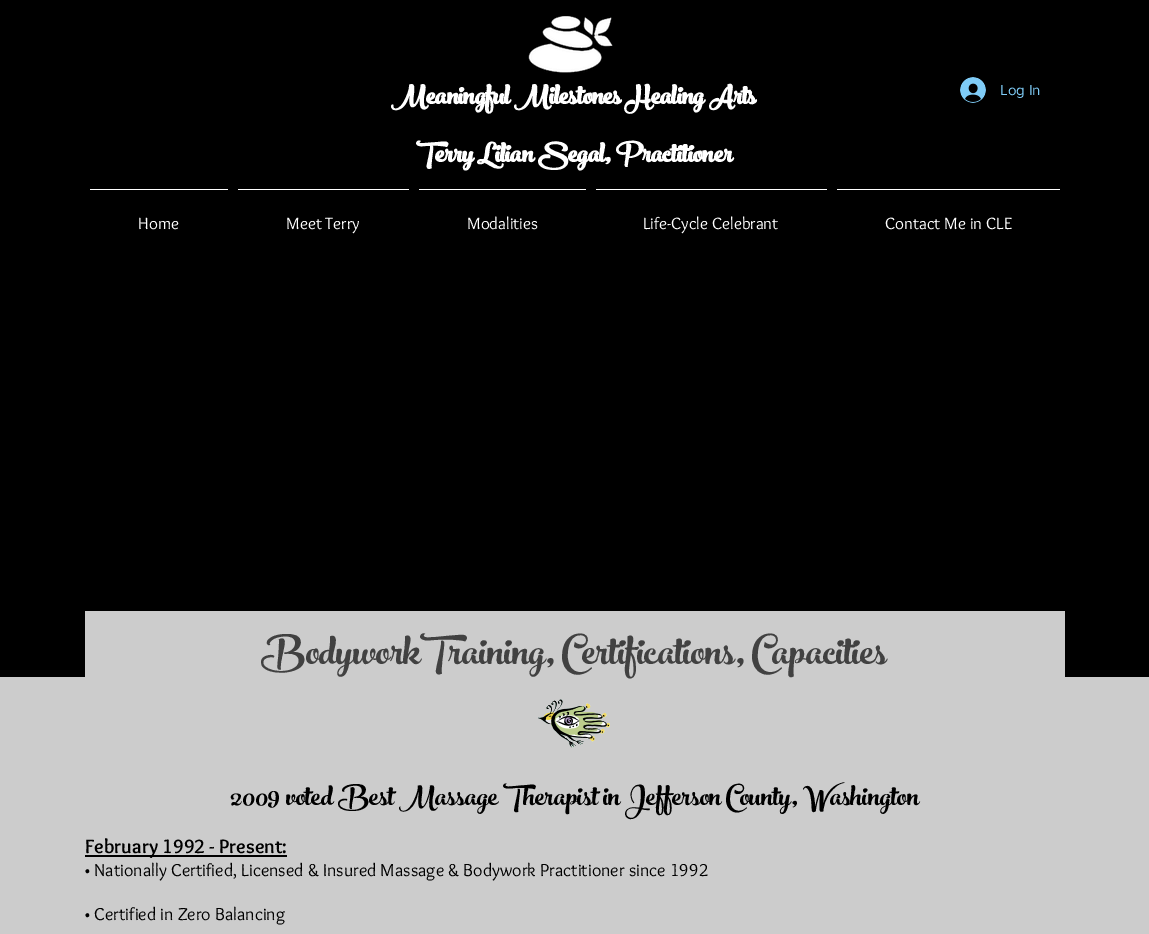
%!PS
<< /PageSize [1149 934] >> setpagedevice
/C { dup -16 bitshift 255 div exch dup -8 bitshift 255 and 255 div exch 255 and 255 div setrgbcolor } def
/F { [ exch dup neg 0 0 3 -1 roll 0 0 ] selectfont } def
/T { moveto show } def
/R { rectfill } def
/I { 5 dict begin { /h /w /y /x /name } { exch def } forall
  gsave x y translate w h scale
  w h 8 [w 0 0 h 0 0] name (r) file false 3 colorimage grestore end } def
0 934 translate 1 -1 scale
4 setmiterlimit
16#000000 C
0 0 1149 934 R
(1.rgb) 528 16 85 57 I
/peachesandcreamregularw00-Bold 40 F
16#FFFFFF C
(Meaningful Milestones Healing Arts) 391 104 T
(Terry Lilian Segal, Practitioner) 416 162 T
(2.rgb) 960 77 26 26 I
/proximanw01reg-Regular 15 F
16#7FCCF7 C
(Log In) 1000 95 T
16#FFFFFF C
90 189 138 1 R
/Overlock-Regular 17 F
(Home) 138 229 T
238 189 171 1 R
(Meet Terry) 286 229 T
419 189 167 1 R
(Modalities) 467 229 T
596 189 231 1 R
(Life-Cycle Celebrant) 643 229 T
837 189 223 1 R
(Contact Me in CLE) 885 229 T
16#CCCCCC C
85 611 980 66 R
0 677 1149 257 R
/peachesandcreamregularw00-Regular 60 F
16#414141 C
(BodyworkTraining, Certifications, Capacities) 261 664 T
(3.rgb) 538 699 72 49 I
/peachesandcreamregularw00-Regular 42 F
16#000000 C
(2009 voted Best Massage Therapist in Jefferson County, Washington) 231 805 T
85 855 202 2 R
/Overlock-Bold 20 F
(February 1992 - Present:) 85 853 T
/Overlock-Regular 18 F
(• Nationally Certified, Licensed & Insured Massage & Bodywork Practitioner since 1992) 85 876 T
(• Certified in Zero Balancing) 85 920 T
showpage
